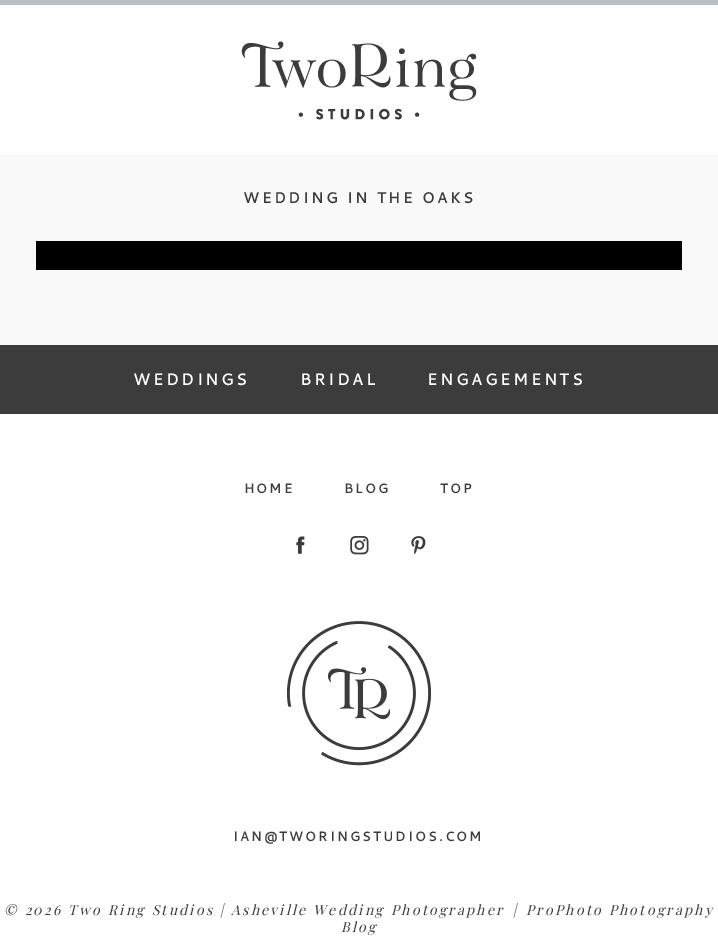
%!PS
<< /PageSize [718 938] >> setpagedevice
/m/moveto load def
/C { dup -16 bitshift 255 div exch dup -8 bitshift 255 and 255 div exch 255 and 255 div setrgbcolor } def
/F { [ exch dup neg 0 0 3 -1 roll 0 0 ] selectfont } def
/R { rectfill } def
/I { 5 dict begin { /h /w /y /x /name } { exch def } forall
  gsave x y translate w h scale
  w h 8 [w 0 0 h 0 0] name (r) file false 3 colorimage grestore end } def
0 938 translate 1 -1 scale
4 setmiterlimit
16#FFFFFF C
0 0 718 938 R
16#B5C1C6 C
0 0 718 5 R
(1.rgb) 241 41 236 79 I
16#FAF9F9 C
0 154 718 191 R
/Cantarell-Bold 15 F
16#3C3C3C C
243 203 m 2.75 0 (WEDDING IN THE OAKS) ashow
16#000000 C
36 241 646 29 R
16#3C3C3C C
0 345 718 69 R
/Cantarell-Bold 16 F
16#FFFFFF C
133 385 m 2.9 0 (WEDDINGS) ashow
300 385 m 2.9 0 (BRIDAL) ashow
427 385 m 2.9 0 (ENGAGEMENTS) ashow
/Cantarell-Bold 13 F
16#3C3C3C C
244 493 m 2.3 0 (HOME) ashow
344 493 m 2.3 0 (BLOG) ashow
440 493 m 2.3 0 (TOP) ashow
(2.rgb) 296 536 9 18 I
(3.rgb) 350 536 19 19 I
(4.rgb) 411 536 15 19 I
(5.rgb) 287 621 145 145 I
233 841 m 2.3 0 (IAN@TWORINGSTUDIOS.COM) ashow
/PlayfairDisplay-Italic 14 F
4 915 m 2.25 0 (© 2026 Two Ring Studios | Asheville Wedding Photographer) ashow
513 915 m 2.25 0 (|) ashow
526 915 m 2.25 0 (ProPhoto Photography) ashow
341 932 m 2.25 0 (Blog) ashow
showpage
